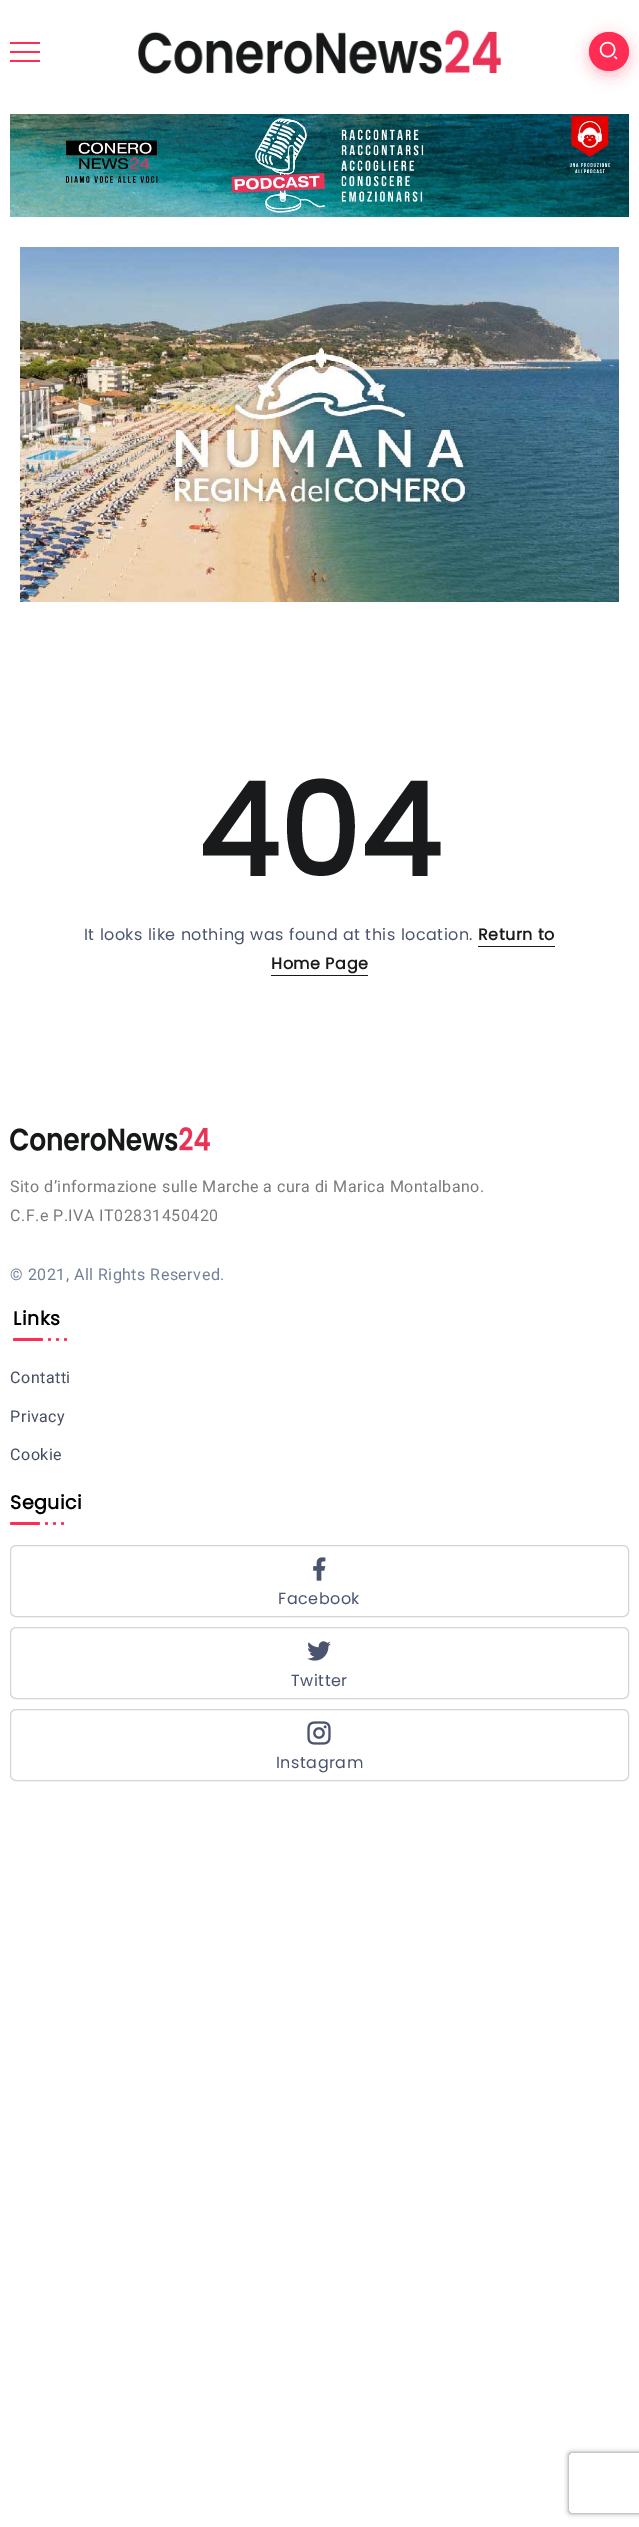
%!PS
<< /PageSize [639 2527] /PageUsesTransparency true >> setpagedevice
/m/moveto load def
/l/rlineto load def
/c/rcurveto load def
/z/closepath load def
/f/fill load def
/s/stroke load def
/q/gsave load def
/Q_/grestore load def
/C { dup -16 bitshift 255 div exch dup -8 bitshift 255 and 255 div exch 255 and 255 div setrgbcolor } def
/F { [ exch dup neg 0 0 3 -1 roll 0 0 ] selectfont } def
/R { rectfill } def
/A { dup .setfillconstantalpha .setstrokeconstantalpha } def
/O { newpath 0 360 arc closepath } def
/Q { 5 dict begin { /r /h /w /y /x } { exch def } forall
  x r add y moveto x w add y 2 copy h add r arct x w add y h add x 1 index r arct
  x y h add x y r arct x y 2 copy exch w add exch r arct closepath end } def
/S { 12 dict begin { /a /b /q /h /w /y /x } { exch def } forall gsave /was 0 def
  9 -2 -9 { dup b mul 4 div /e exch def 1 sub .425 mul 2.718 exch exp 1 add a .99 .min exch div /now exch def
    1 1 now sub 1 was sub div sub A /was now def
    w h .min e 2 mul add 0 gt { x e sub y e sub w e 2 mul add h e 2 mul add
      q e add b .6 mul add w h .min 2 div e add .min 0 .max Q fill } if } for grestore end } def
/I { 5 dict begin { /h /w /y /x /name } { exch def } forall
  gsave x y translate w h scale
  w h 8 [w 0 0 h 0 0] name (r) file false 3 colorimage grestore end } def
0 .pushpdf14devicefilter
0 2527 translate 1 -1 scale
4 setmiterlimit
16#FFFFFF C
0 0 639 2527 R
16#FF2C54 C
10 42 30 2 R
10 51 30 2 R
10 60 30 2 R
(1.rgb) 138 30 363 44 I
589 36 40 39 19.5 7.5 .33 S
589 32 40 39 19.5 Q f
(2.rgb) 599 41 19 19 I
(3.rgb) 10 114 619 103 I
(4.rgb) 20 247 599 355 I
/Poppins-Bold 128 F
16#191A1B C
198 876 m .5 0 (404) ashow
/Poppins-Regular 16 F
16#4B546E C
84 940 m .5 0 (It looks like nothing was found at this location.) ashow
/Poppins-Bold 16 F
16#191A1B C
478 940 m .5 0 (Return to) ashow
478 946 77 1 R
271 969 m .5 0 (Home Page) ashow
271 975 97 1 R
(5.rgb) 10 1127 200 24 I
/Roboto-Regular 16 F
16#7A7A7A C
10 1192 m .5 0 (Sito d’informazione sulle Marche a cura di Marica Montalbano.) ashow
10 1221 m .5 0 (C.F.e P.IVA IT02831450420) ashow
16#718096 C
10 1280 m .5 0 (© 2021, All Rights Reserved.) ashow
/Poppins-Bold 19 F
16#000000 C
13 1325 m .5 0 (Links) ashow
16#FF2C54 C
13 1338 30 3 1.5 Q f
49.5 1339.5 1.5 O f
57.5 1339.5 1.5 O f
65.5 1339.5 1.5 O f
/Roboto-Regular 16 F
16#454D63 C
10 1383 m .5 0 (Contatti) ashow
10 1422 m .5 0 (Privacy) ashow
10 1460 m .5 0 (Cookie) ashow
/Poppins-Bold 19 F
16#000000 C
10 1509 m .5 0 (Seguici) ashow
16#FF2C54 C
10 1522 30 3 1.5 Q f
46.5 1523.5 1.5 O f
54.5 1523.5 1.5 O f
62.5 1523.5 1.5 O f
16#D5D5D5 C
10.5 1545.5 618 71 5.5 Q s
(6.rgb) 313 1557 13 24 I
/Poppins-Regular 16 F
16#4B546E C
278 1604 m .5 0 (Facebook) ashow
16#D5D5D5 C
10.5 1627.5 618 71 5.5 Q s
(7.rgb) 307 1641 24 20 I
16#4B546E C
291 1686 m .5 0 (Twitter) ashow
16#D5D5D5 C
10.5 1709.5 618 71 5.5 Q s
(8.rgb) 307 1721 24 24 I
16#4B546E C
276 1768 m .5 0 (Instagram) ashow
q
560 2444 m 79 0 l 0 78 l -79 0 l z 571 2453 m 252 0 l 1 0 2 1 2 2 c 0 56 l 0 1 -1 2 -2 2 c -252 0 l -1 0 -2 -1 -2 -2 c 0 -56 l 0 -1 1 -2 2 -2 c z eoclip newpath
16#808080 C
569 2453 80 60 2 2.5 1 S
Q_
.poppdf14devicefilter showpage
